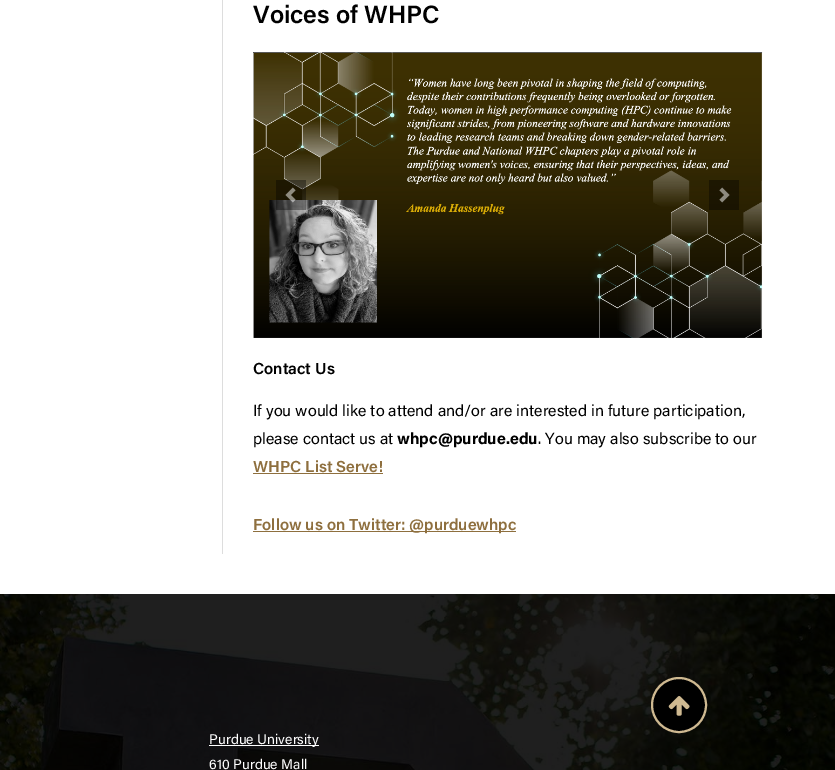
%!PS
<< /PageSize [835 770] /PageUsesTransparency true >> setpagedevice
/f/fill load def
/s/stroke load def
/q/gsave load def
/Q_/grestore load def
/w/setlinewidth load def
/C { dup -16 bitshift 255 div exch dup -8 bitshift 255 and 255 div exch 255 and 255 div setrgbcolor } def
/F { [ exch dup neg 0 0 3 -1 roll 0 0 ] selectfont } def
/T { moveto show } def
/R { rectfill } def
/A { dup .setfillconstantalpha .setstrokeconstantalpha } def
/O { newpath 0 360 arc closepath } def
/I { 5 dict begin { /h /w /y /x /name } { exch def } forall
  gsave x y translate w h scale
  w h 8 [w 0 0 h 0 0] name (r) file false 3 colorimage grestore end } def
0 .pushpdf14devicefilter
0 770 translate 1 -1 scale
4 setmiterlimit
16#FFFFFF C
0 0 835 770 R
16#DDDDDD C
222 0 1 554 R
/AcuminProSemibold-SemiBold 25 F
16#000000 C
(Voices of WHPC) 253 23 T
(1.rgb) 253 52 510 286 I
0.38 A
276 180 30 30 R
1 A
(2.rgb) 285 187 11 16 I
0.38 A
709 180 30 30 R
1 A
(3.rgb) 719 187 11 16 I
/AcuminProSemibold-SemiBold 16 F
(Contact Us) 253 374 T
/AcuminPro-Regular 16 F
(If you would like to attend and/or are interested in future participation,) 253 416 T
(please contact us at) 253 444 T
/AcuminPro-Bold 16 F
(whpc@purdue.edu) 397 444 T
/AcuminPro-Regular 16 F
(. You may also subscribe to our) 538 444 T
/AcuminProSemibold-SemiBold 16 F
16#8E6F3E C
(WHPC List Serve!) 253 472 T
253 473 130 1 R
253 531 263 1 R
(Follow us on Twitter: @purduewhpc) 253 530 T
(5.rgb) 0 594 835 176 I
16#000000 C
679 705 27 O q f Q_
16#CFB991 C
2 w
s
(4.rgb) 668 696 22 20 I
16#FFFFFF C
209 745 110 1 R
/AcuminPro-Regular 14 F
(Purdue University) 209 744 T
(610 Purdue Mall) 209 769 T
.poppdf14devicefilter showpage
